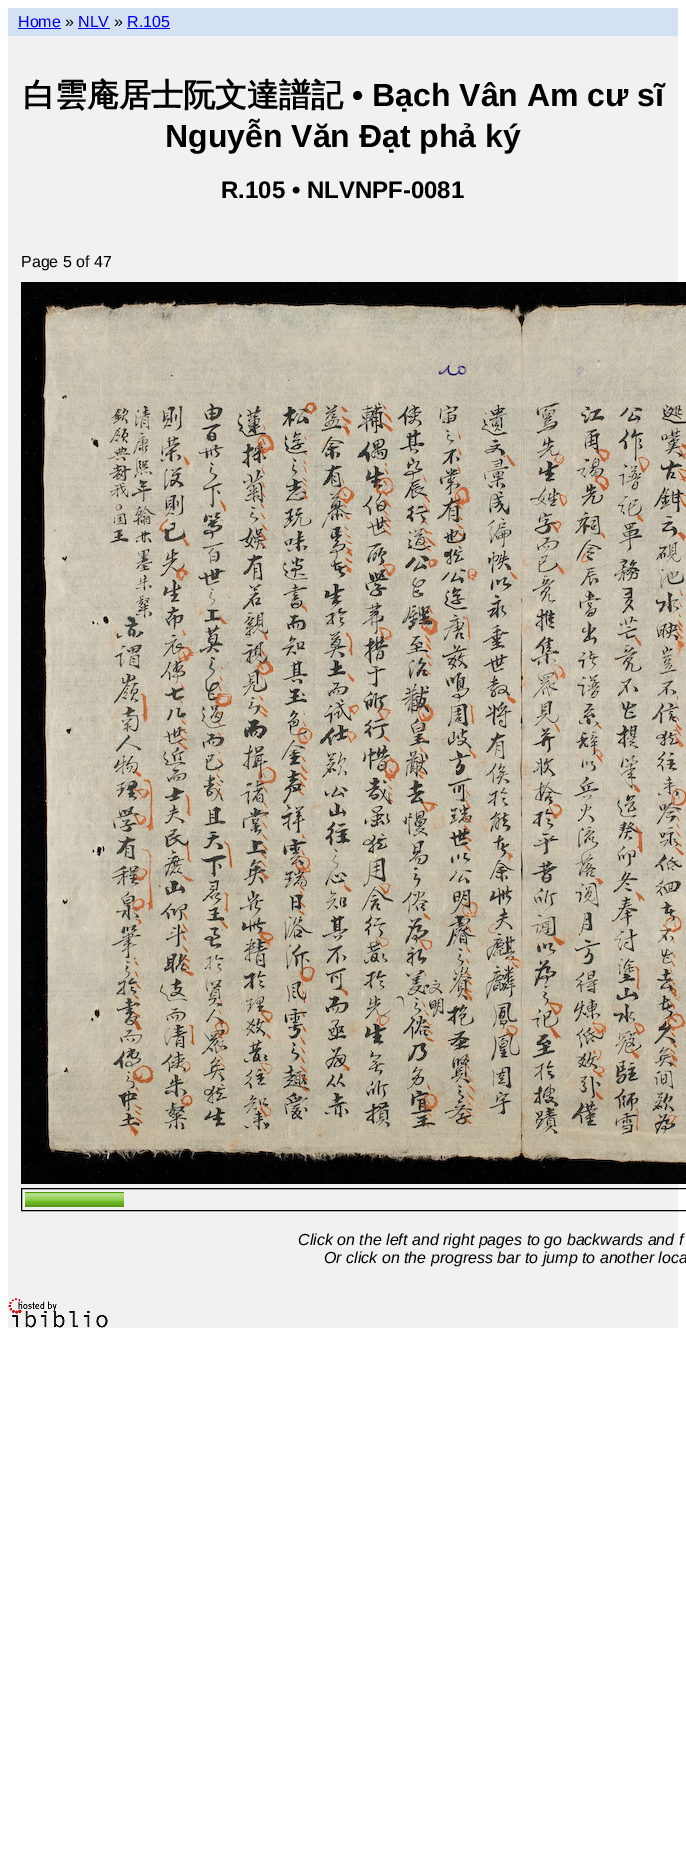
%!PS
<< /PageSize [686 1875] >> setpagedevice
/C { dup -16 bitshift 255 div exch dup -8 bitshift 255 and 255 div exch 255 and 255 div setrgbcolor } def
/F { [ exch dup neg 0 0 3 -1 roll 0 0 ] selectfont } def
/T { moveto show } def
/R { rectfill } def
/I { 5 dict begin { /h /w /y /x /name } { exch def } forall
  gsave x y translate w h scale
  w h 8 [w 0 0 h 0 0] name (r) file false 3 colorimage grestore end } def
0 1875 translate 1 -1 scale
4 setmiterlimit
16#FFFFFF C
0 0 686 1875 R
16#F1F1F1 C
8 36 670 1292 R
16#D4E0F3 C
8 8 670 28 R
/LiberationSans-Regular 16 F
16#0000EE C
(Home) 18 27 T
18 28 43 1 R
16#000000 C
(») 65 27 T
16#0000EE C
(NLV) 78 27 T
78 28 32 1 R
16#000000 C
(») 114 27 T
16#0000EE C
(R.105) 127 27 T
127 28 43 1 R
/WenQuanYiZenHei-Bold 32 F
16#000000 C
(白雲庵居士阮文達譜記) 23 106 T
/LiberationSans-Bold 32 F
(• Bạch Vân Am cư sĩ) 352 106 T
(Nguyễn Văn Đạt phả ký) 165 147 T
/LiberationSans-Bold 24 F
(R.105 • NLVNPF-0081) 221 198 T
/LiberationSans-Regular 16 F
(Page 5 of 47) 21 267 T
(1.rgb) 21 282 665 902 I
21.5 1188.5 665 22 rectstroke
(2.rgb) 25 1192 99 15 I
/LiberationSans-Italic 16 F
(Click on the left and right pages to go backwards and f) 298 1245 T
(Or click on the progress bar to jump to another loca) 324 1263 T
(3.rgb) 8 1298 100 30 I
showpage
